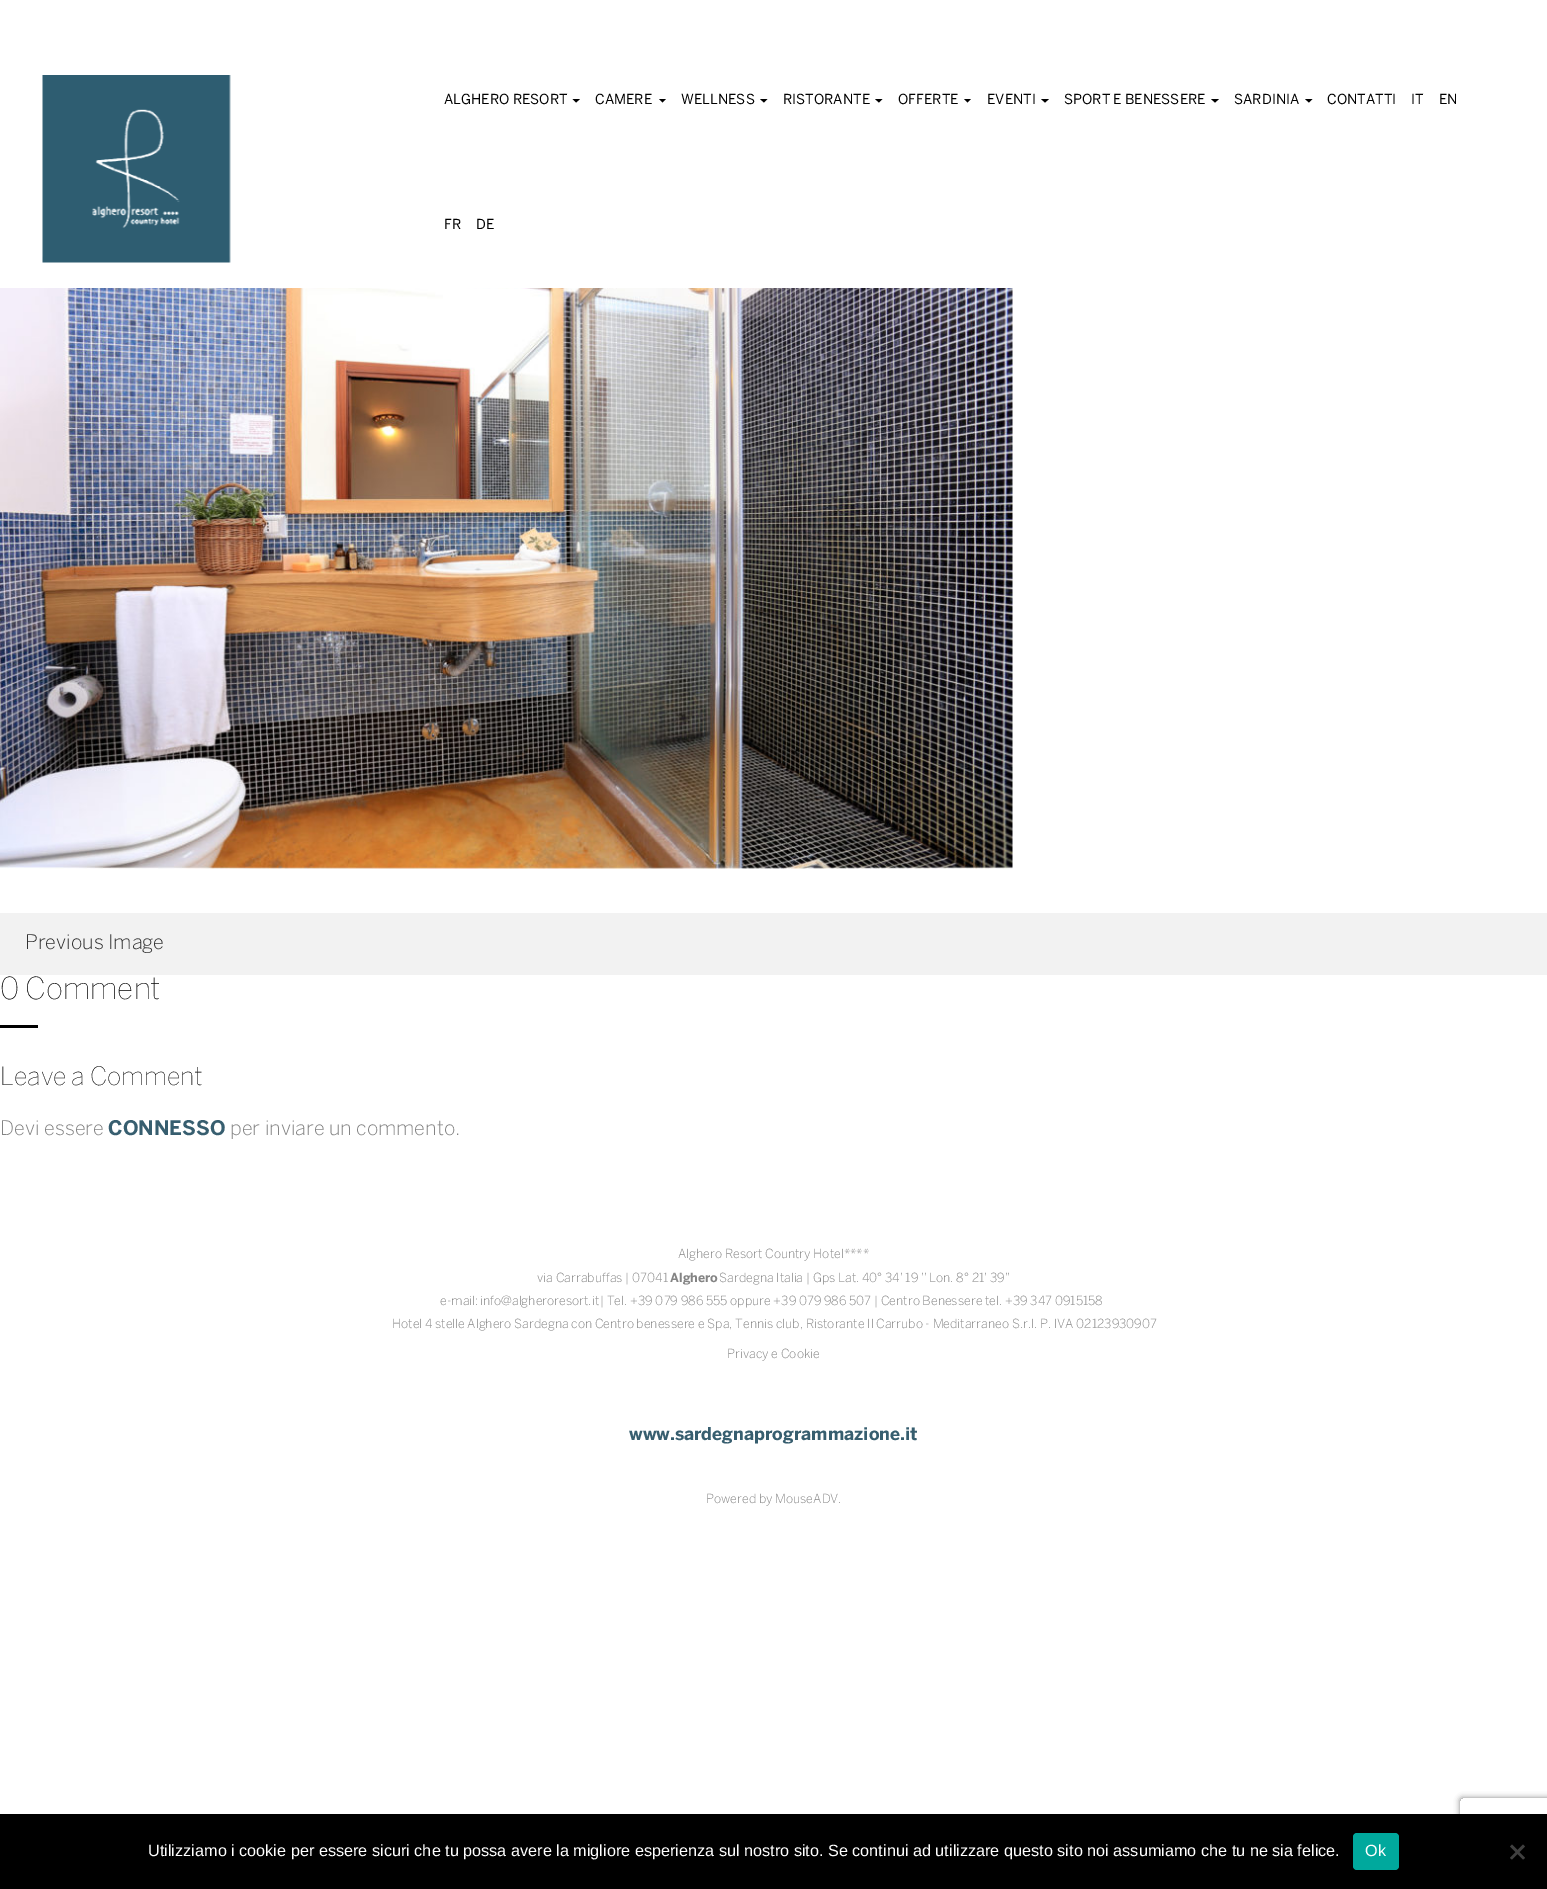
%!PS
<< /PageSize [1547 1889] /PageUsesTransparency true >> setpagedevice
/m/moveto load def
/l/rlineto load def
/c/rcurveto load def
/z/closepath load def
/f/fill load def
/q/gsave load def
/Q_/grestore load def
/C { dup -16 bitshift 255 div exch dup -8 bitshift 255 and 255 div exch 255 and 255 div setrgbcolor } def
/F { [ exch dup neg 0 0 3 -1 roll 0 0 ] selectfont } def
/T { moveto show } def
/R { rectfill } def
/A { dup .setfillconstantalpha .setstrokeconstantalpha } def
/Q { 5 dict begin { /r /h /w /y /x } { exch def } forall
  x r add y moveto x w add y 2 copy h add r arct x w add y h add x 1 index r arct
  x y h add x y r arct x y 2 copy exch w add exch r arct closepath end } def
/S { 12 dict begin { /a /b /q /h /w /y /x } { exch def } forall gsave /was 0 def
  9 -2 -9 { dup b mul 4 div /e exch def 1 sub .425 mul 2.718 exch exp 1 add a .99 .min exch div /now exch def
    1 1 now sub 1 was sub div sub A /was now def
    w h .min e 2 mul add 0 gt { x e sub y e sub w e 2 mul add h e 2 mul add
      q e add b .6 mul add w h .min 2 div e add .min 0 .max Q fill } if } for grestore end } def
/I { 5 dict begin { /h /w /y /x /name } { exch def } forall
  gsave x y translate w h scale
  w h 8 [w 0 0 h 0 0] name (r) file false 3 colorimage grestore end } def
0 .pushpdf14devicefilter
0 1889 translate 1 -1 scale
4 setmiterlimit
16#FFFFFF C
0 0 1547 1889 R
(1.rgb) 42 75 189 188 I
/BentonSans-Regular 13.75 F
16#000000 C
(ALGHERO RESORT) 444 104 T
572.5 99 m 7.5 0 l -4 3.5 l z f
(CAMERE) 595 104 T
659 99 m 7 0 l -3.5 3.5 l z f
(WELLNESS) 681 104 T
760 99 m 7.5 0 l -3.5 3.5 l z f
(RISTORANTE) 783 104 T
875 99 m 7.5 0 l -3.5 3.5 l z f
(OFFERTE) 898 104 T
964 99 m 7 0 l -3.5 3.5 l z f
(EVENTI) 987 104 T
1041 99 m 8 0 l -4 3.5 l z f
(SPORT E BENESSERE) 1064 104 T
1211 99 m 8 0 l -4 3.5 l z f
(SARDINIA) 1234 104 T
1305 99 m 7.5 0 l -3.5 3.5 l z f
(CONTATTI) 1327 104 T
(IT) 1411 104 T
(EN) 1439 104 T
(FR) 444 229 T
(DE) 476 229 T
(2.rgb) 0 288 1013 581 I
16#F2F2F2 C
0 913 1547 62 R
/BentonSans-Light 20 F
16#333333 C
(Previous Image) 25 949 T
/BentonSans-Thin 30 F
16#000000 C
(0 Comment) 0 999 T
0 1025 38 3 R
/BentonSans-Thin 25 F
(Leave a Comment) 0 1085 T
/BentonSans-Light 20 F
16#848484 C
(Devi essere) 0 1135 T
/BentonSans-Bold 20 F
16#375E6F C
(CONNESSO) 108 1135 T
/BentonSans-Light 20 F
16#848484 C
(per inviare un commento.) 230 1135 T
/BentonSans-Light 12.5 F
(Alghero Resort Country Hotel****) 678 1258 T
(via Carrabuffas | 07041) 537 1282 T
/BentonSans-Bold 12.5 F
(Alghero) 670 1282 T
/BentonSans-Light 12.5 F
(Sardegna Italia | Gps Lat. 40° 34' 19 '' Lon. 8° 21' 39'') 719 1282 T
(e-mail:) 440 1305 T
(info@algheroresort.it) 480 1305 T
(| Tel. +39 079 986 555 oppure +39 079 986 507 | Centro Benessere tel. +39 347 0915158) 600 1305 T
(Hotel 4 stelle Alghero Sardegna con Centro benessere e Spa, Tennis club, Ristorante Il Carrubo - Meditarraneo S.r.l. P. IVA 02123930907) 392 1328 T
(Privacy e Cookie) 727 1358 T
/BentonSans-Bold 17.5 F
16#375E6F C
(www.sardegnaprogrammazione.it) 629 1440 T
/BentonSans-Light 12.5 F
16#848484 C
(Powered by MouseADV.) 706 1503 T
q
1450 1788 m 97 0 l 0 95 l -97 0 l z 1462.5 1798 m 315 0 l 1.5 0 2.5 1 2.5 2.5 c 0 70 l 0 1.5 -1 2.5 -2.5 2.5 c -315 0 l -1.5 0 -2.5 -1 -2.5 -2.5 c 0 -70 l 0 -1.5 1 -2.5 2.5 -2.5 c z eoclip newpath
16#808080 C
1460 1798 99 75 2.5 3 1 S
Q_
16#000000 C
0 1814 1547 75 R
/LiberationSans-Regular 16.25 F
16#FFFFFF C
(Utilizziamo i cookie per essere sicuri che tu possa avere la migliore esperienza sul nostro sito. Se continui ad utilizzare questo sito noi assumiamo che tu ne sia felice.) 148 1856 T
16#00A99D C
1353 1833 46 37 4 Q f
16#FFFFFF C
(Ok) 1365 1856 T
16#404040 C
1523 1844.5 m 2 2 l -13 13 l -2 -1.5 l z f
1510 1846.5 m 2 -2 l 13 13.5 l -2 1.5 l z f
.poppdf14devicefilter showpage
